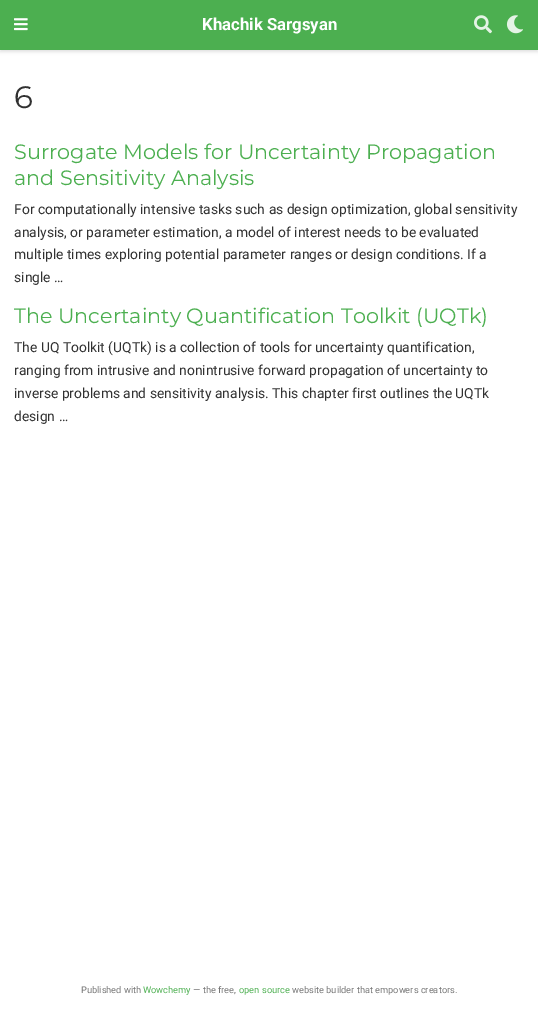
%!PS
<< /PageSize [538 1011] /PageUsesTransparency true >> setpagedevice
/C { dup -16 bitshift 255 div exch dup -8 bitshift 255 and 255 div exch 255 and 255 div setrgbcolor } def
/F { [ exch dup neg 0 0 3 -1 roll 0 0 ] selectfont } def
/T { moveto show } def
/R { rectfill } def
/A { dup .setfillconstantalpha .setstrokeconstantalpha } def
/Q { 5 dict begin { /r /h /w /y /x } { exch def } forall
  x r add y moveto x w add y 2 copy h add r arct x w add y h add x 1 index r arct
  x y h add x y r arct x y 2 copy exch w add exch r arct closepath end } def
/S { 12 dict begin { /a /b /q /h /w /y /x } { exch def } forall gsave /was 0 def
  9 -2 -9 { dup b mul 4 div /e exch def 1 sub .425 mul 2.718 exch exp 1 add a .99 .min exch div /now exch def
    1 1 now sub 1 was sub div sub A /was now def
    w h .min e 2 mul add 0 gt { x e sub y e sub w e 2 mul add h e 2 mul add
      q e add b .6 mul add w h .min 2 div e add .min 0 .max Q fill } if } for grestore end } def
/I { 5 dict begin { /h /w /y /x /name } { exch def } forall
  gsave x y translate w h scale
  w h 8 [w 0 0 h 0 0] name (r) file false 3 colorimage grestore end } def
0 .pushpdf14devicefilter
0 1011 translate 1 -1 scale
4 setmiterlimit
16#FFFFFF C
0 0 538 1011 R
16#000000 C
0 2 538 50 0 1.5 .11 S
16#4CAF50 C
0 0 538 50 R
(1.rgb) 14 18 14 13 I
/Roboto-Bold 16.75 F
16#FFFFFF C
(Khachik Sargsyan) 202 30 T
(2.rgb) 474 15 18 19 I
(3.rgb) 506 15 17 19 I
/Montserrat-Regular 31 F
16#313131 C
(6) 14 108 T
/Montserrat-Regular 20.75 F
16#4CAF50 C
(Surrogate Models for Uncertainty Propagation) 14 159 T
(and Sensitivity Analysis) 14 185 T
/Roboto-Regular 13.85 F
16#313131 C
(For computationally intensive tasks such as design optimization, global sensitivity) 14 214 T
(analysis, or parameter estimation, a model of interest needs to be evaluated) 14 237 T
(multiple times exploring potential parameter ranges or design conditions. If a) 14 259 T
(single …) 14 282 T
/Montserrat-Regular 20.75 F
16#4CAF50 C
(The Uncertainty Quantification Toolkit \(UQTk\)) 14 323 T
/Roboto-Regular 13.85 F
16#313131 C
(The UQ Toolkit \(UQTk\) is a collection of tools for uncertainty quantification,) 14 352 T
(ranging from intrusive and nonintrusive forward propagation of uncertainty to) 14 375 T
(inverse problems and sensitivity analysis. This chapter first outlines the UQTk) 14 398 T
(design …) 14 421 T
/Roboto-Regular 9.25 F
16#757575 C
(Published with) 81 993 T
16#4CAF50 C
(Wowchemy) 143 993 T
16#757575 C
(— the free,) 193 993 T
16#4CAF50 C
(open source) 239 993 T
16#757575 C
(website builder that empowers creators.) 292 993 T
.poppdf14devicefilter showpage
